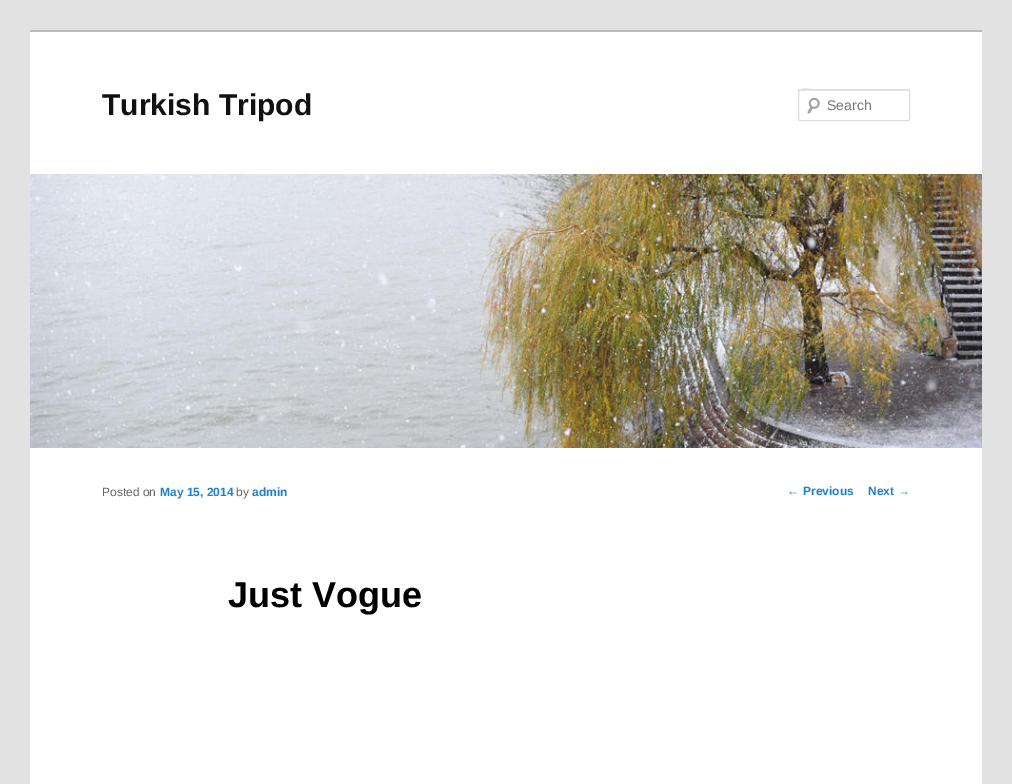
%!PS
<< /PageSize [1012 784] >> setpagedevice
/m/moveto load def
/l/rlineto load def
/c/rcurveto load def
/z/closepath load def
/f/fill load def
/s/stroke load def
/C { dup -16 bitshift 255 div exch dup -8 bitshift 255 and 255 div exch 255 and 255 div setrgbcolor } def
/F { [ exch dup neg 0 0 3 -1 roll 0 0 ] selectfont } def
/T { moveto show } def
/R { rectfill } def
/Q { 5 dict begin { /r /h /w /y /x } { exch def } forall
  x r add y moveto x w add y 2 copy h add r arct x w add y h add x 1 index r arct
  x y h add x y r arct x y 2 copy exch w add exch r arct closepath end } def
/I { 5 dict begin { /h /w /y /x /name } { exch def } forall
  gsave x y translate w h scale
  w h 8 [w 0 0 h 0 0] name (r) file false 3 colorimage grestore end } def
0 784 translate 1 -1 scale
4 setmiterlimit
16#E2E2E2 C
0 0 1012 784 R
16#FFFFFF C
30 32 952 752 R
16#BBBBBB C
30 30 952 2 R
/LiberationSans-Bold 30 F
16#111111 C
(Turkish Tripod) 102 115 T
(1.rgb) 807 97 13 17 I
16#E6E6E6 C
800 91 m 109 0 l 0 1 l -1 -2 l -90 0 l -4 0 -19 -5 -19 2 c 0 -1 0 -1 1 -1 c z f
16#DDDDDD C
798.5 89.5 111 31 1.5 Q s
/LiberationSans-Regular 14 F
16#757575 C
(Search) 827 110 T
(2.rgb) 30 174 952 274 I
/LiberationSans-Regular 12 F
16#666666 C
(Posted on) 102 496 T
/LiberationSans-Bold 12 F
16#1982D1 C
(May 15, 2014) 160 496 T
/LiberationSans-Regular 12 F
16#666666 C
(by) 236 496 T
/LiberationSans-Bold 12 F
16#1982D1 C
(admin) 252 496 T
/LiberationSans-Bold 36 F
16#000000 C
(Just Vogue) 228 607 T
/LiberationSans-Regular 12 F
16#1982D1 C
(←) 787 495 T
/LiberationSans-Bold 12 F
(Previous) 803 495 T
(Next) 868 495 T
/LiberationSans-Regular 12 F
(→) 898 495 T
showpage
